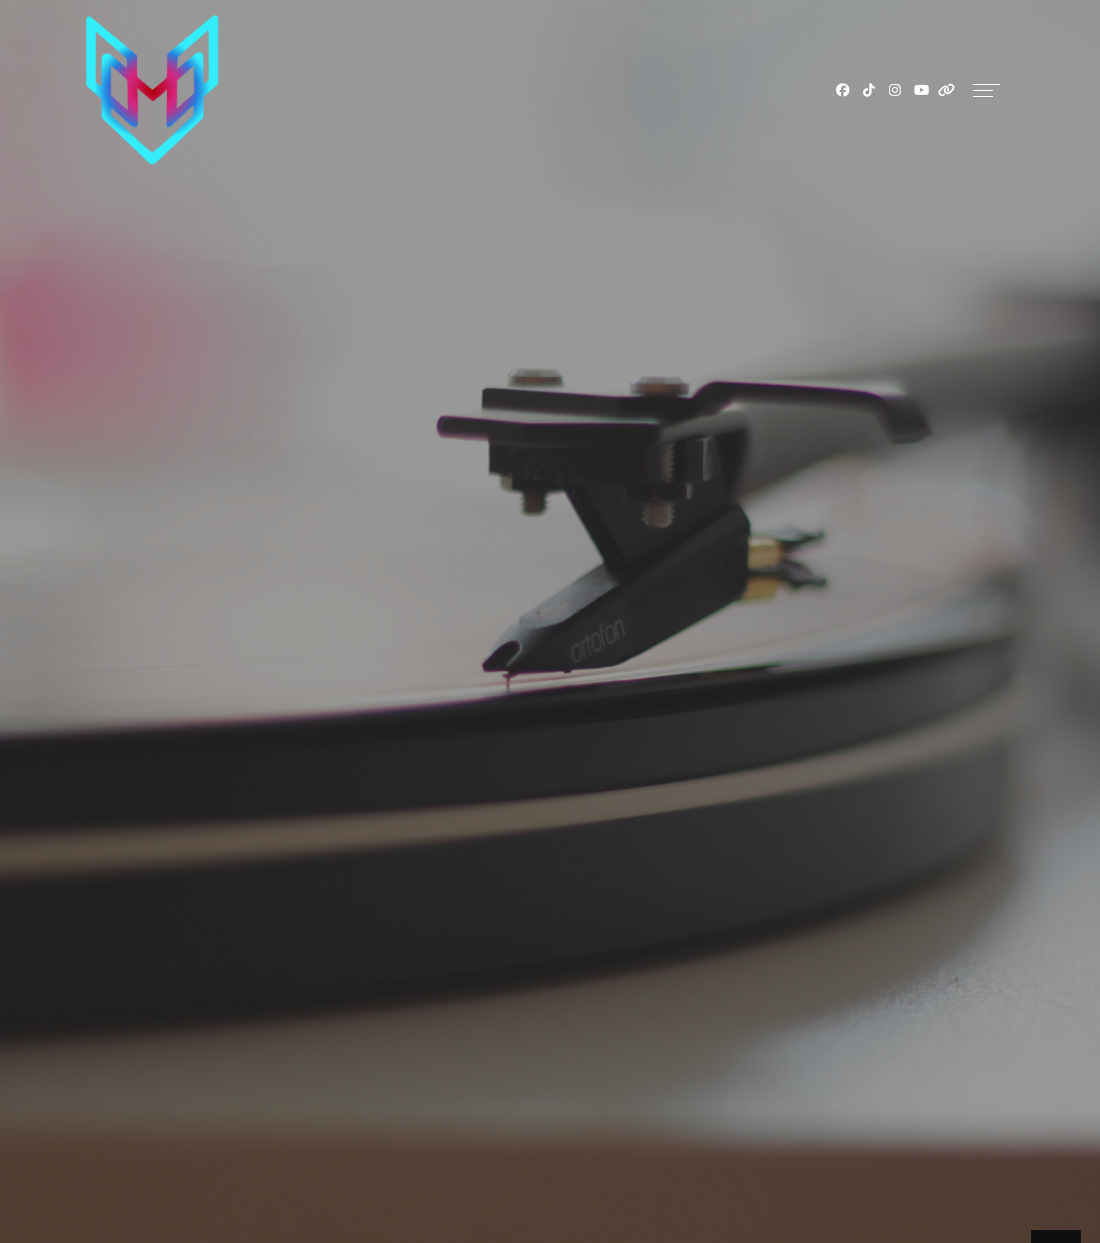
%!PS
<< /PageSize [1100 1243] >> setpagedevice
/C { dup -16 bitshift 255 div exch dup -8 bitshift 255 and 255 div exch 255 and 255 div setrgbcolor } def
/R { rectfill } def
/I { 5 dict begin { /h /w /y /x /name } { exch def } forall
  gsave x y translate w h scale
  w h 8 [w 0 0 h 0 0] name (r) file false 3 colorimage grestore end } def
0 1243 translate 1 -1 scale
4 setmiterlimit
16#1C1C1C C
0 0 1100 1243 R
(1.rgb) 0 0 1100 1243 I
(2.rgb) 86 15 133 150 I
(3.rgb) 836 83 14 14 I
(4.rgb) 863 83 12 14 I
(5.rgb) 889 84 12 12 I
(6.rgb) 914 84 15 11 I
(7.rgb) 938 83 17 14 I
16#FFFFFF C
973 84 27 1 R
973 90 20 1 R
973 96 20 1 R
16#0F0F0F C
1031 1230 50 13 R
showpage
